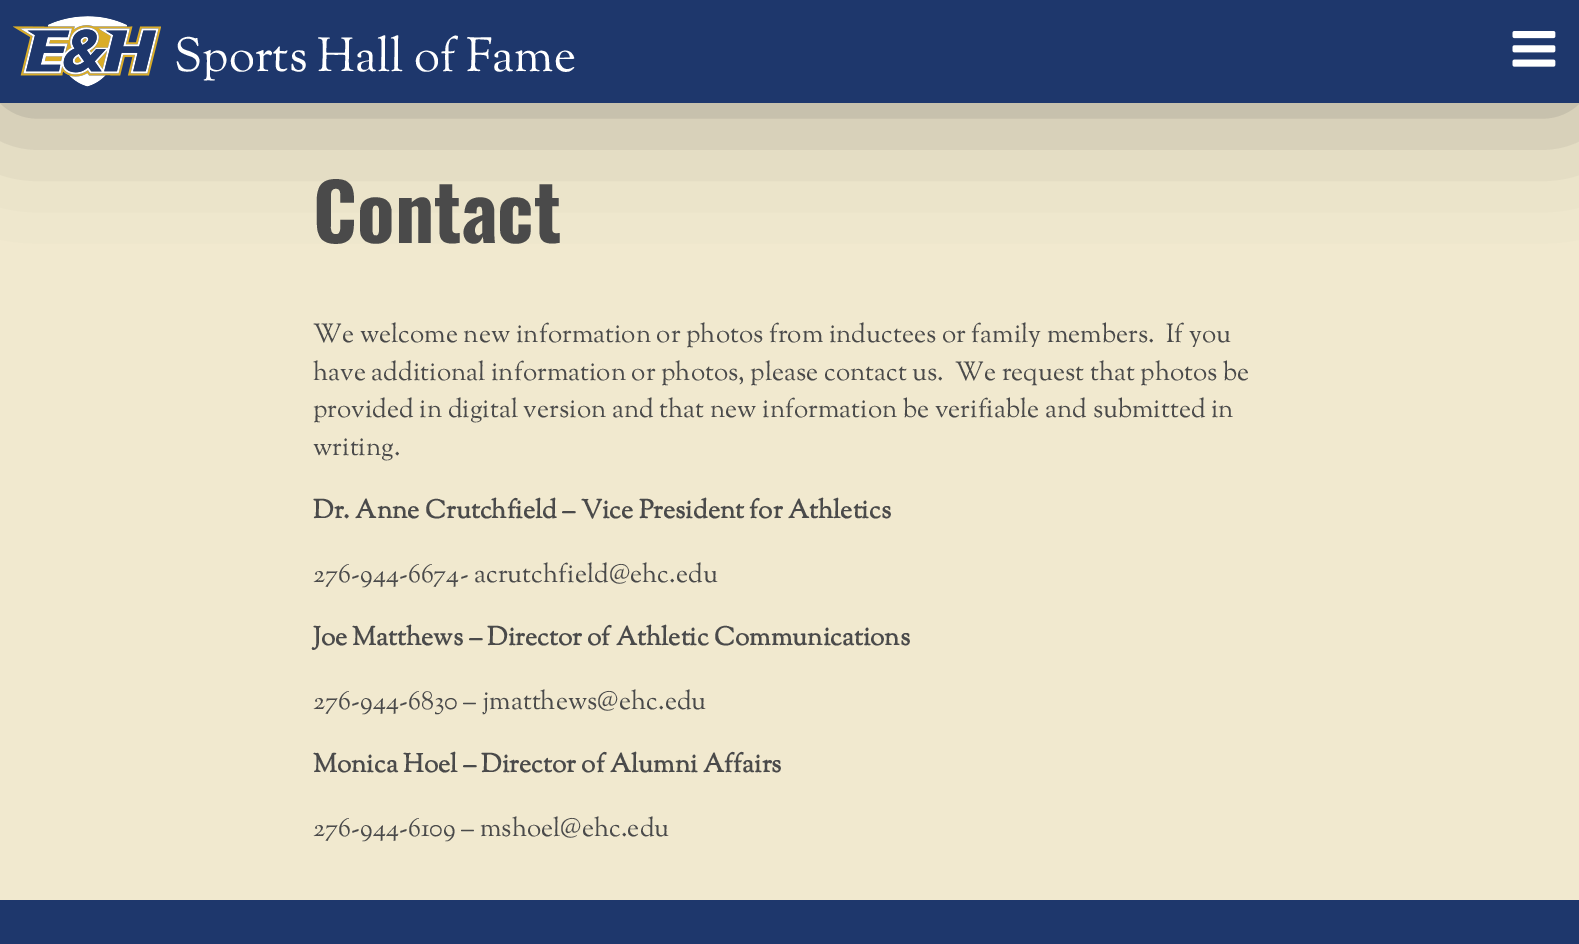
%!PS
<< /PageSize [1579 944] /PageUsesTransparency true >> setpagedevice
/C { dup -16 bitshift 255 div exch dup -8 bitshift 255 and 255 div exch 255 and 255 div setrgbcolor } def
/F { [ exch dup neg 0 0 3 -1 roll 0 0 ] selectfont } def
/T { moveto show } def
/R { rectfill } def
/A { dup .setfillconstantalpha .setstrokeconstantalpha } def
/Q { 5 dict begin { /r /h /w /y /x } { exch def } forall
  x r add y moveto x w add y 2 copy h add r arct x w add y h add x 1 index r arct
  x y h add x y r arct x y 2 copy exch w add exch r arct closepath end } def
/S { 12 dict begin { /a /b /q /h /w /y /x } { exch def } forall gsave /was 0 def
  9 -2 -9 { dup b mul 4 div /e exch def 1 sub .425 mul 2.718 exch exp 1 add a .99 .min exch div /now exch def
    1 1 now sub 1 was sub div sub A /was now def
    w h .min e 2 mul add 0 gt { x e sub y e sub w e 2 mul add h e 2 mul add
      q e add b .6 mul add w h .min 2 div e add .min 0 .max Q fill } if } for grestore end } def
/I { 5 dict begin { /h /w /y /x /name } { exch def } forall
  gsave x y translate w h scale
  w h 8 [w 0 0 h 0 0] name (r) file false 3 colorimage grestore end } def
0 .pushpdf14devicefilter
0 944 translate 1 -1 scale
4 setmiterlimit
16#F1E9CF C
0 0 1579 944 R
16#4A4A4A C
0 0 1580 103 0 62.5 .5 S
16#1E376C C
0 0 1579 103 R
(1.rgb) 13 16 148 71 I
/SortsMillGoudy-Regular 47.5 F
16#FFFFFF C
(Sports Hall of Fame) 174 71 T
(2.rgb) 1512 31 44 36 I
/Oswald-Bold 78 F
16#4A4A4A C
(Contact) 313 243 T
/SortsMillGoudy-Regular 26 F
(We welcome new information or photos from inductees or family members.  If you) 313 342 T
(have additional information or photos, please contact us.  We request that photos be) 313 380 T
(provided in digital version and that new information be verifiable and submitted in) 313 417 T
(writing.) 313 455 T
/SortsMillGoudy-Bold 26 F
(Dr. Anne Crutchfield – Vice President for Athletics) 313 518 T
/SortsMillGoudy-Regular 26 F
(276-944-6674- acrutchfield@ehc.edu) 313 582 T
/SortsMillGoudy-Bold 26 F
(Joe Matthews – Director of Athletic Communications) 313 645 T
/SortsMillGoudy-Regular 26 F
(276-944-6830 – jmatthews@ehc.edu) 313 709 T
/SortsMillGoudy-Bold 26 F
(Monica Hoel – Director of Alumni Affairs) 313 772 T
/SortsMillGoudy-Regular 26 F
(276-944-6109 – mshoel@ehc.edu) 313 836 T
16#1E376C C
0 900 1579 44 R
.poppdf14devicefilter showpage
